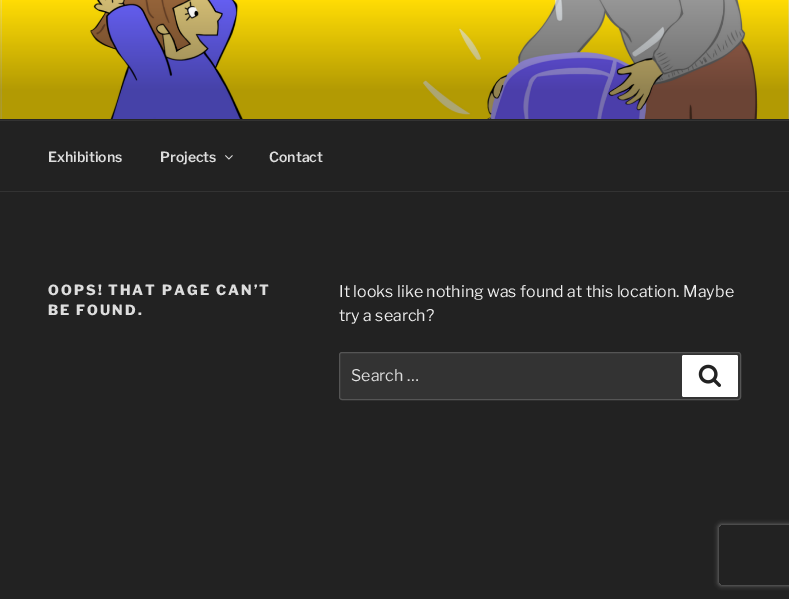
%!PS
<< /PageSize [789 599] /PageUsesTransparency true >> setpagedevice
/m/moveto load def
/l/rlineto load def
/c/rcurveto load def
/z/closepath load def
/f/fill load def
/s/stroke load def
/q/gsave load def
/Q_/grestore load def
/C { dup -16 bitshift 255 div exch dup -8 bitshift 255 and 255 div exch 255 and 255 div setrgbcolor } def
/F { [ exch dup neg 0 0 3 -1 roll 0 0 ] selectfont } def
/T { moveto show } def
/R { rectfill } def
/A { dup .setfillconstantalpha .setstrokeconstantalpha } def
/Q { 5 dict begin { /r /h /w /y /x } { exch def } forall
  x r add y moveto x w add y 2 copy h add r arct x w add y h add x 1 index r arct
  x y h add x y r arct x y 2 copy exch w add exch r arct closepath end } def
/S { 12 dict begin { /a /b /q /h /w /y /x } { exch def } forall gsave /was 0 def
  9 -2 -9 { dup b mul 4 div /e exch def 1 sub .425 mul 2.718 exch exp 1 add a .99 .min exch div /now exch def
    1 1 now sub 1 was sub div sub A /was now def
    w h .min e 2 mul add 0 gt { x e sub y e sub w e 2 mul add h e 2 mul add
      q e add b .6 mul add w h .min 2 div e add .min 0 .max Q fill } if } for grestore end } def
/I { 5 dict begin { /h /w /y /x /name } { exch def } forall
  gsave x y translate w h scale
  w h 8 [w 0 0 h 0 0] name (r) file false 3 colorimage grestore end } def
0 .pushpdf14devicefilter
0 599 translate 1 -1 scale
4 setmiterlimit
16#222222 C
0 0 789 599 R
16#262626 C
0 119 789 1 R
(1.rgb) 0 0 789 119 I
16#333333 C
0 120 789 1 R
0 191 789 1 R
/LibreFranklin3-Thin 14 F
16#DDDDDD C
(Exhibitions) 48 162 T
(Projects) 160 162 T
(2.rgb) 225 155 8 5 I
(Contact) 269 162 T
/LibreFranklin-Thin 14 F
48 295 m 2 0 (OOPS! THAT PAGE CAN’T) ashow
48 315 m 2 0 (BE FOUND.) ashow
/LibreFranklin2-Thin 16 F
16#EEEEEE C
(It looks like nothing was found at this location. Maybe) 339 297 T
(try a search?) 339 321 T
16#333333 C
339.5 352.5 401 47 2.5 Q q f Q_
16#555555 C
s
16#DDDDDD C
(Search …) 351 381 T
16#FFFFFF C
682 355 56 42 2 Q f
(3.rgb) 698 364 23 23 I
q
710 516 m 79 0 l 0 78 l -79 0 l z 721 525 m 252 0 l 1 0 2 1 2 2 c 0 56 l 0 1 -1 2 -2 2 c -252 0 l -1 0 -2 -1 -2 -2 c 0 -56 l 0 -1 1 -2 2 -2 c z eoclip newpath
16#808080 C
719 525 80 60 2 2.5 1 S
Q_
.poppdf14devicefilter showpage
